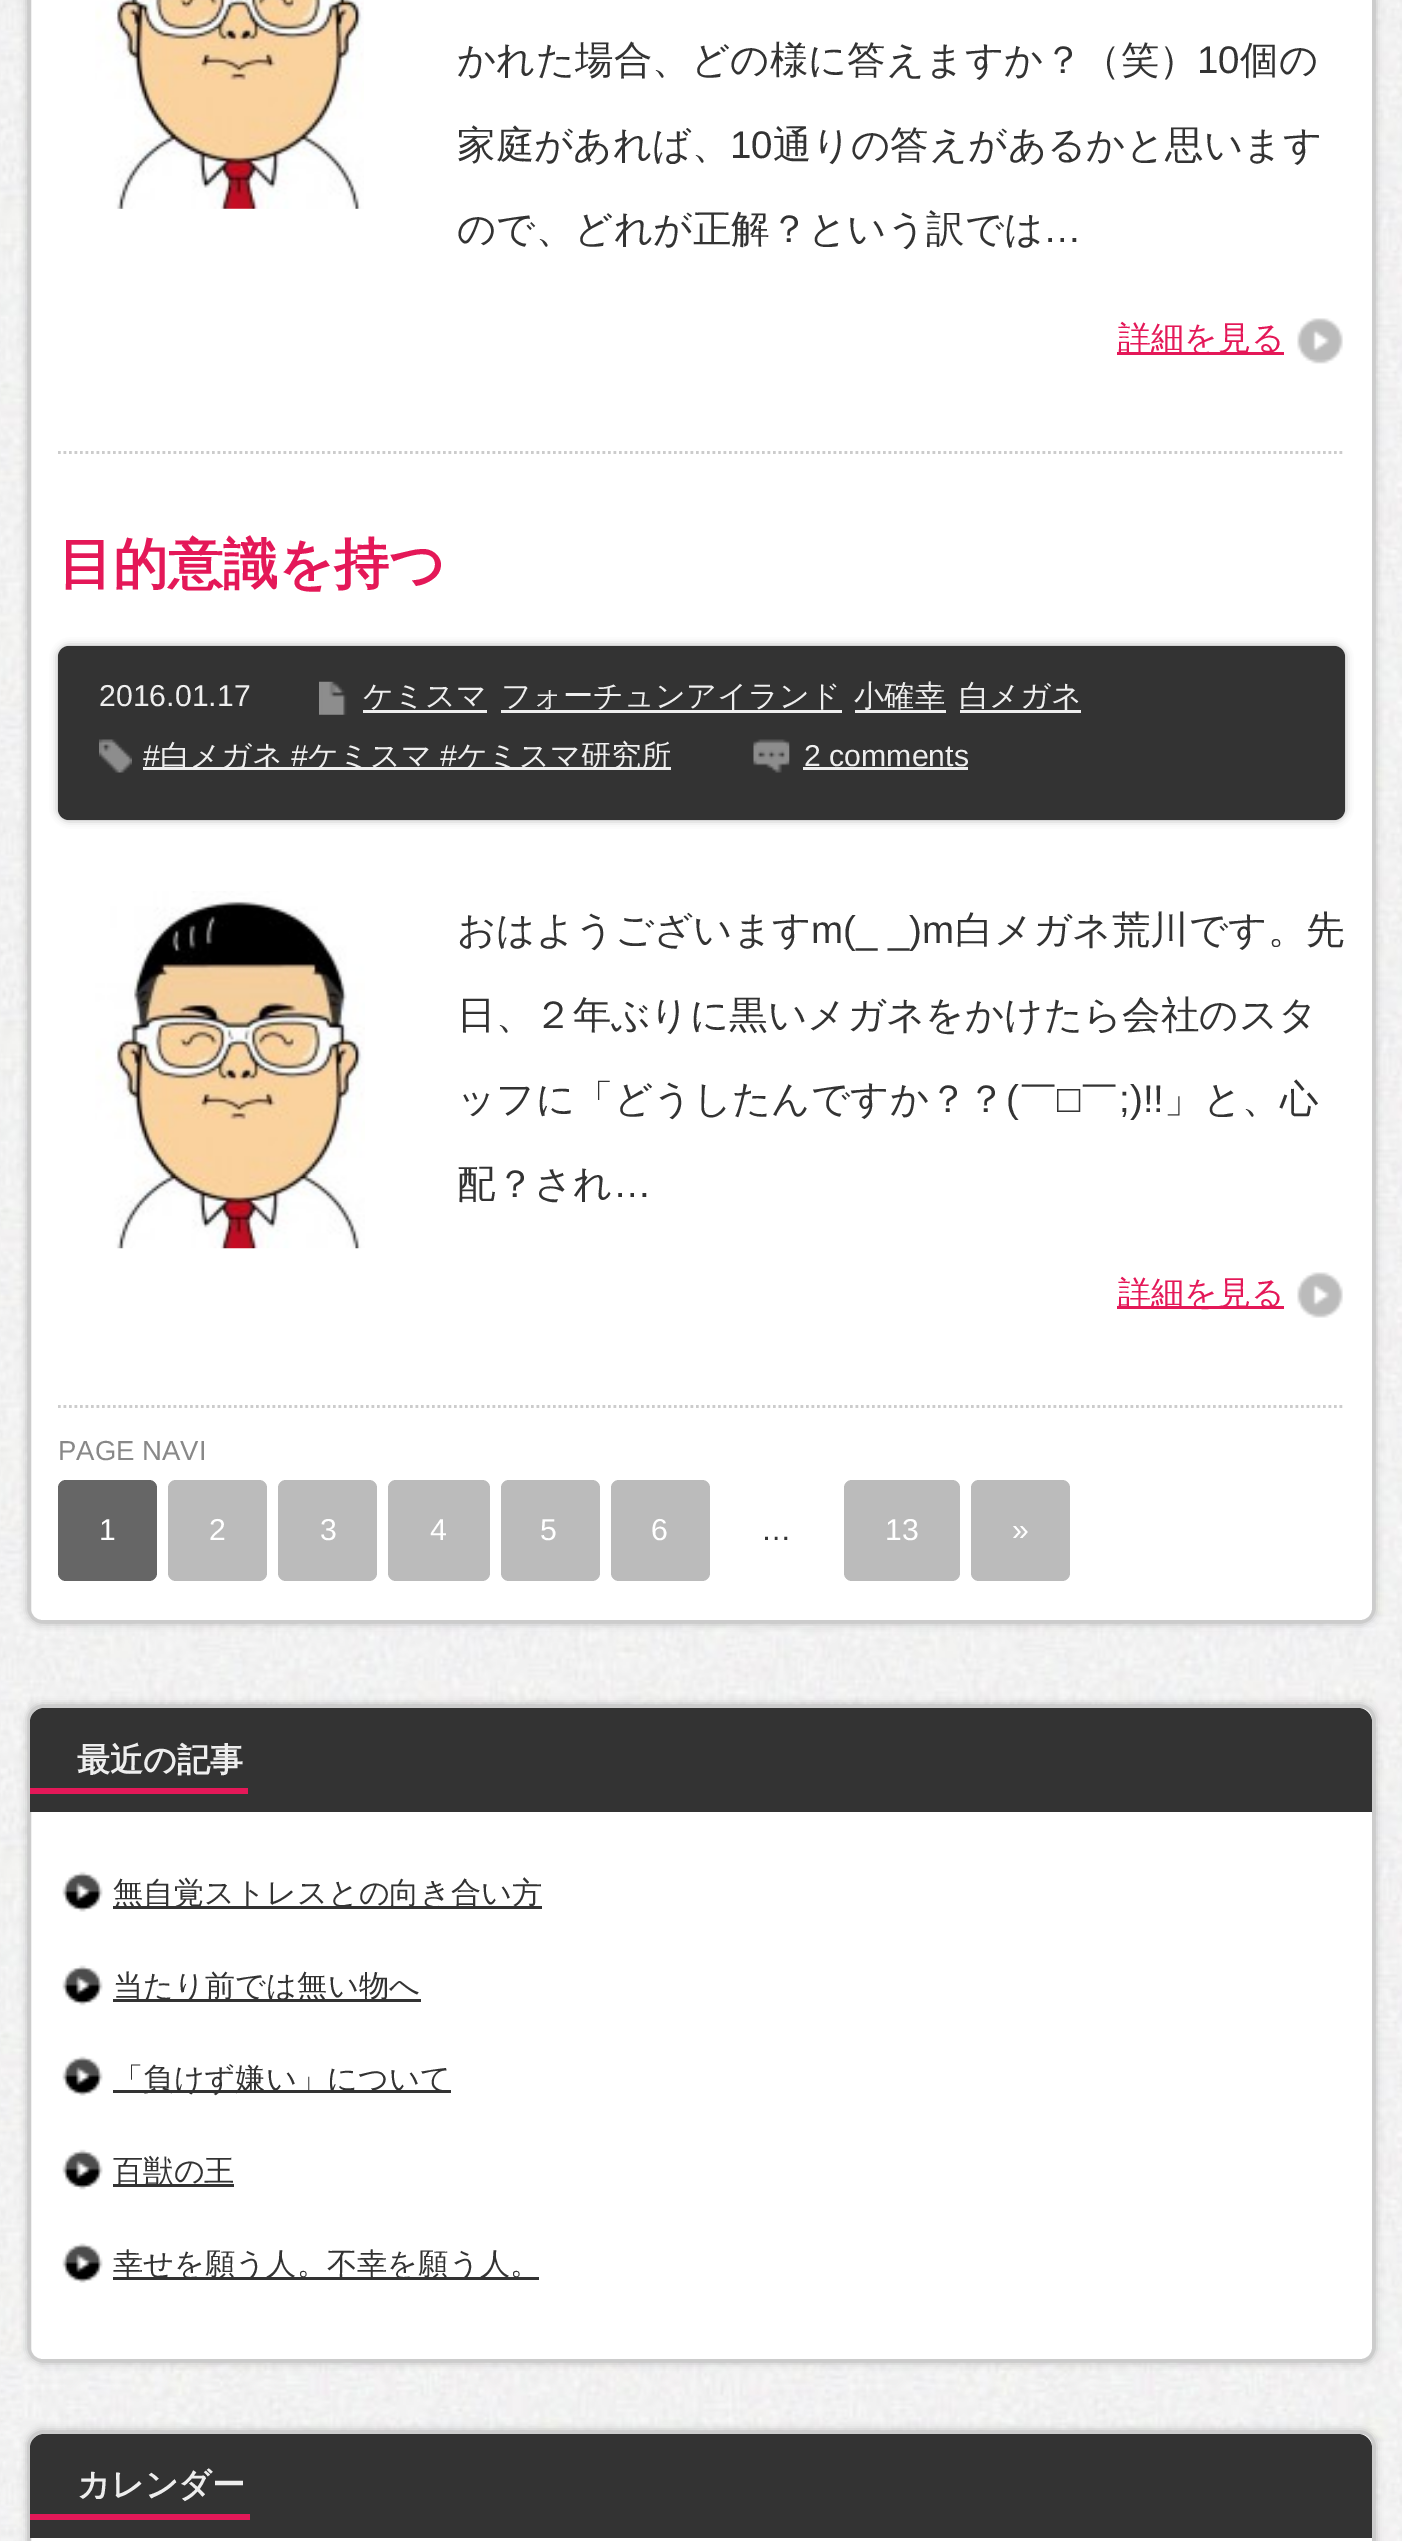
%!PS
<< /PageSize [1402 2541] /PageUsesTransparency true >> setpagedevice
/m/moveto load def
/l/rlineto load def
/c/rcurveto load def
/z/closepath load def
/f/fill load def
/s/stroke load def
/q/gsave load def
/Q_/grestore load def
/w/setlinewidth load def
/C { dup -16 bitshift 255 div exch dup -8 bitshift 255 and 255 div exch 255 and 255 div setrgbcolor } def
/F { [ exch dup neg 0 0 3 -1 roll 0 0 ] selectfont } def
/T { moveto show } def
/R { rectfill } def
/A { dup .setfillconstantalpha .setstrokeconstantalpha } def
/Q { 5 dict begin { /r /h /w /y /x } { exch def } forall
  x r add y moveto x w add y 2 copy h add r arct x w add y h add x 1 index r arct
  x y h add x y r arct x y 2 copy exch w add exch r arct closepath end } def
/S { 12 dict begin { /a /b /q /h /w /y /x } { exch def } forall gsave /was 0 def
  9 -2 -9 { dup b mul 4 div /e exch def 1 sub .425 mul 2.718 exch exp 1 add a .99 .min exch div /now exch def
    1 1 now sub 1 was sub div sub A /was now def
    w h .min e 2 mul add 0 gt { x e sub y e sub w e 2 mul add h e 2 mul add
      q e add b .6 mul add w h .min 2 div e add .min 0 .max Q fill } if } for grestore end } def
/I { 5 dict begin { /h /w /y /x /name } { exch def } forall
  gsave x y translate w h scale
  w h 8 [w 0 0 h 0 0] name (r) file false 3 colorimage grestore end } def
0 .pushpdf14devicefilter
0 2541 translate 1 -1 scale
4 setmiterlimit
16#FFFFFF C
0 0 1402 2541 R
(1.rgb) 0 0 1402 2541 I
16#AAAAAA C
28 -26 1347 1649 14 4 1 S
16#FFFFFF C
29.5 -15.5 1344 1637 12.5 Q q f Q_
16#CCCCCC C
3 w
s
2.8 w
[2.75 2.75] 0 setdash
58 452.5 m 1287 0 l s
(2.rgb) 95 0 269 209 I
/WenQuanYiZenHei-Medium 38.5 F
16#333333 C
(かれた場合、どの様に答えますか？（笑）) 457 73 T
/LiberationSans-Regular 38.5 F
(10) 1197 73 T
/WenQuanYiZenHei-Medium 38.5 F
(個の) 1240 73 T
(家庭があれば、) 457 158 T
/LiberationSans-Regular 38.5 F
(10) 730 158 T
/WenQuanYiZenHei-Medium 38.5 F
(通りの答えがあるかと思います) 773 158 T
(ので、どれが正解？という訳では) 457 242 T
/LiberationSans-Regular 38.5 F
(…) 1043 242 T
(3.rgb) 1297 318 46 46 I
16#E41858 C
1117 352 167 3 R
/WenQuanYiZenHei-Medium 33 F
(詳細を見る) 1118 349 T
16#CCCCCC C
58 1406.5 m 1287 0 l s
/WenQuanYiZenHei-Bold 55 F
16#E41858 C
(目的意識を持つ) 58 583 T
16#AAAAAA C
58 646 1287 174 11 4 1 S
16#333333 C
58 646 1287 174 11 Q f
/LiberationSans-Regular 30.25 F
16#EEEEEE C
(2016.01.17) 99 706 T
(4.rgb) 319 681 28 34 I
/WenQuanYiZenHei-Medium 30.25 F
(ケミスマ) 363 706 T
363 710 124 3 R
(フォーチュンアイランド) 501 706 T
501 710 341 3 R
(小確幸) 854 706 T
855 710 91 3 R
960 710 121 3 R
(白メガネ) 959 706 T
(5.rgb) 99 739 33 34 I
/LiberationSans-Regular 30.25 F
(#) 143 766 T
143 767 528 3 R
/WenQuanYiZenHei-Medium 30.25 F
(白メガネ) 160 766 T
/LiberationSans-Regular 30.25 F
(#) 291 766 T
/WenQuanYiZenHei-Medium 30.25 F
(ケミスマ) 308 766 T
/LiberationSans-Regular 30.25 F
(#) 440 766 T
/WenQuanYiZenHei-Medium 30.25 F
(ケミスマ研究所) 457 766 T
(6.rgb) 753 739 37 34 I
/LiberationSans-Regular 30.25 F
(2 comments) 804 766 T
803 767 165 3 R
(7.rgb) 95 891 270 358 I
/WenQuanYiZenHei-Medium 38.5 F
16#333333 C
(おはようございます) 457 943 T
/LiberationSans-Regular 38.5 F
(m\(_ _\)m) 811 943 T
/WenQuanYiZenHei-Medium 38.5 F
(白メガネ荒川です。先) 955 943 T
(日、２年ぶりに黒いメガネをかけたら会社のスタ) 457 1028 T
(ッフに「どうしたんですか？？) 457 1112 T
/LiberationSans-Regular 38.5 F
(\() 1006 1112 T
/WenQuanYiZenHei-Medium 38.5 F
(￣) 1019 1112 T
/LiberationSans-Regular 38.5 F
(□) 1057 1112 T
/WenQuanYiZenHei-Medium 38.5 F
(￣) 1080 1112 T
/LiberationSans-Regular 38.5 F
(;\)!!) 1119 1112 T
/WenQuanYiZenHei-Medium 38.5 F
(」と、心) 1164 1112 T
(配？され) 457 1197 T
/LiberationSans-Regular 38.5 F
(…) 613 1197 T
(8.rgb) 1297 1272 46 46 I
16#E41858 C
1117 1306 167 3 R
/WenQuanYiZenHei-Medium 33 F
(詳細を見る) 1118 1304 T
/LiberationSans-Regular 27.5 F
16#888888 C
(PAGE NAVI) 58 1460 T
16#666666 C
58 1480 99 101 8 Q f
/LiberationSans-Regular 30.25 F
16#FFFFFF C
(1) 99 1540 T
16#BBBBBB C
168 1480 99 101 8 Q f
16#FFFFFF C
(2) 209 1540 T
16#BBBBBB C
278 1480 99 101 8 Q f
16#FFFFFF C
(3) 320 1540 T
16#BBBBBB C
388 1480 102 101 8 Q f
16#FFFFFF C
(4) 430 1540 T
16#BBBBBB C
501 1480 99 101 8 Q f
16#FFFFFF C
(5) 540 1540 T
16#BBBBBB C
611 1480 99 101 8 Q f
16#FFFFFF C
(6) 651 1540 T
16#333333 C
(…) 761 1540 T
16#BBBBBB C
844 1480 116 101 8 Q f
16#FFFFFF C
(13) 885 1540 T
16#BBBBBB C
971 1480 99 101 8 Q f
16#FFFFFF C
(») 1012 1540 T
16#AAAAAA C
28 1705 1347 657 14 4 1 S
16#FFFFFF C
29.5 1706.5 1344 654 12.5 Q q f Q_
16#CCCCCC C
3 w
[] 0 setdash
s
16#333333 C
44 1708 m 1314 0 l 7.5 0 14 6.5 14 14 c 0 90 l -1342 0 l 0 -90 l 0 -7.5 6.5 -14 14 -14 c z f
/WenQuanYiZenHei-Bold 33 F
16#EEEEEE C
(最近の記事) 77 1771 T
16#E41858 C
30 1788 218 6 R
(9.rgb) 62 1871 41 41 I
16#333333 C
113 1906 429 3 R
/WenQuanYiZenHei-Medium 30.25 F
(無自覚ストレスとの向き合い方) 113 1903 T
(10.rgb) 62 1965 41 41 I
113 1999 308 3 R
(当たり前では無い物へ) 113 1996 T
(11.rgb) 62 2056 41 40 I
113 2090 338 3 R
(「負けず嫌い」について) 113 2089 T
(12.rgb) 62 2149 41 41 I
113 2184 121 3 R
(百獣の王) 113 2181 T
(11.rgb) 62 2243 41 40 I
113 2277 426 3 R
(幸せを願う人。不幸を願う人。) 113 2274 T
16#AAAAAA C
28 2431 1347 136 14 4 1 S
16#FFFFFF C
29.5 2432.5 1344 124 12.5 Q q f Q_
16#CCCCCC C
s
16#333333 C
44 2434 m 1314 0 l 7.5 0 14 6.5 14 14 c 0 90 l -1342 0 l 0 -90 l 0 -7.5 6.5 -14 14 -14 c z f
/WenQuanYiZenHei-Bold 33 F
16#EEEEEE C
(カレンダー) 77 2496 T
16#E41858 C
30 2514 220 6 R
.poppdf14devicefilter showpage
